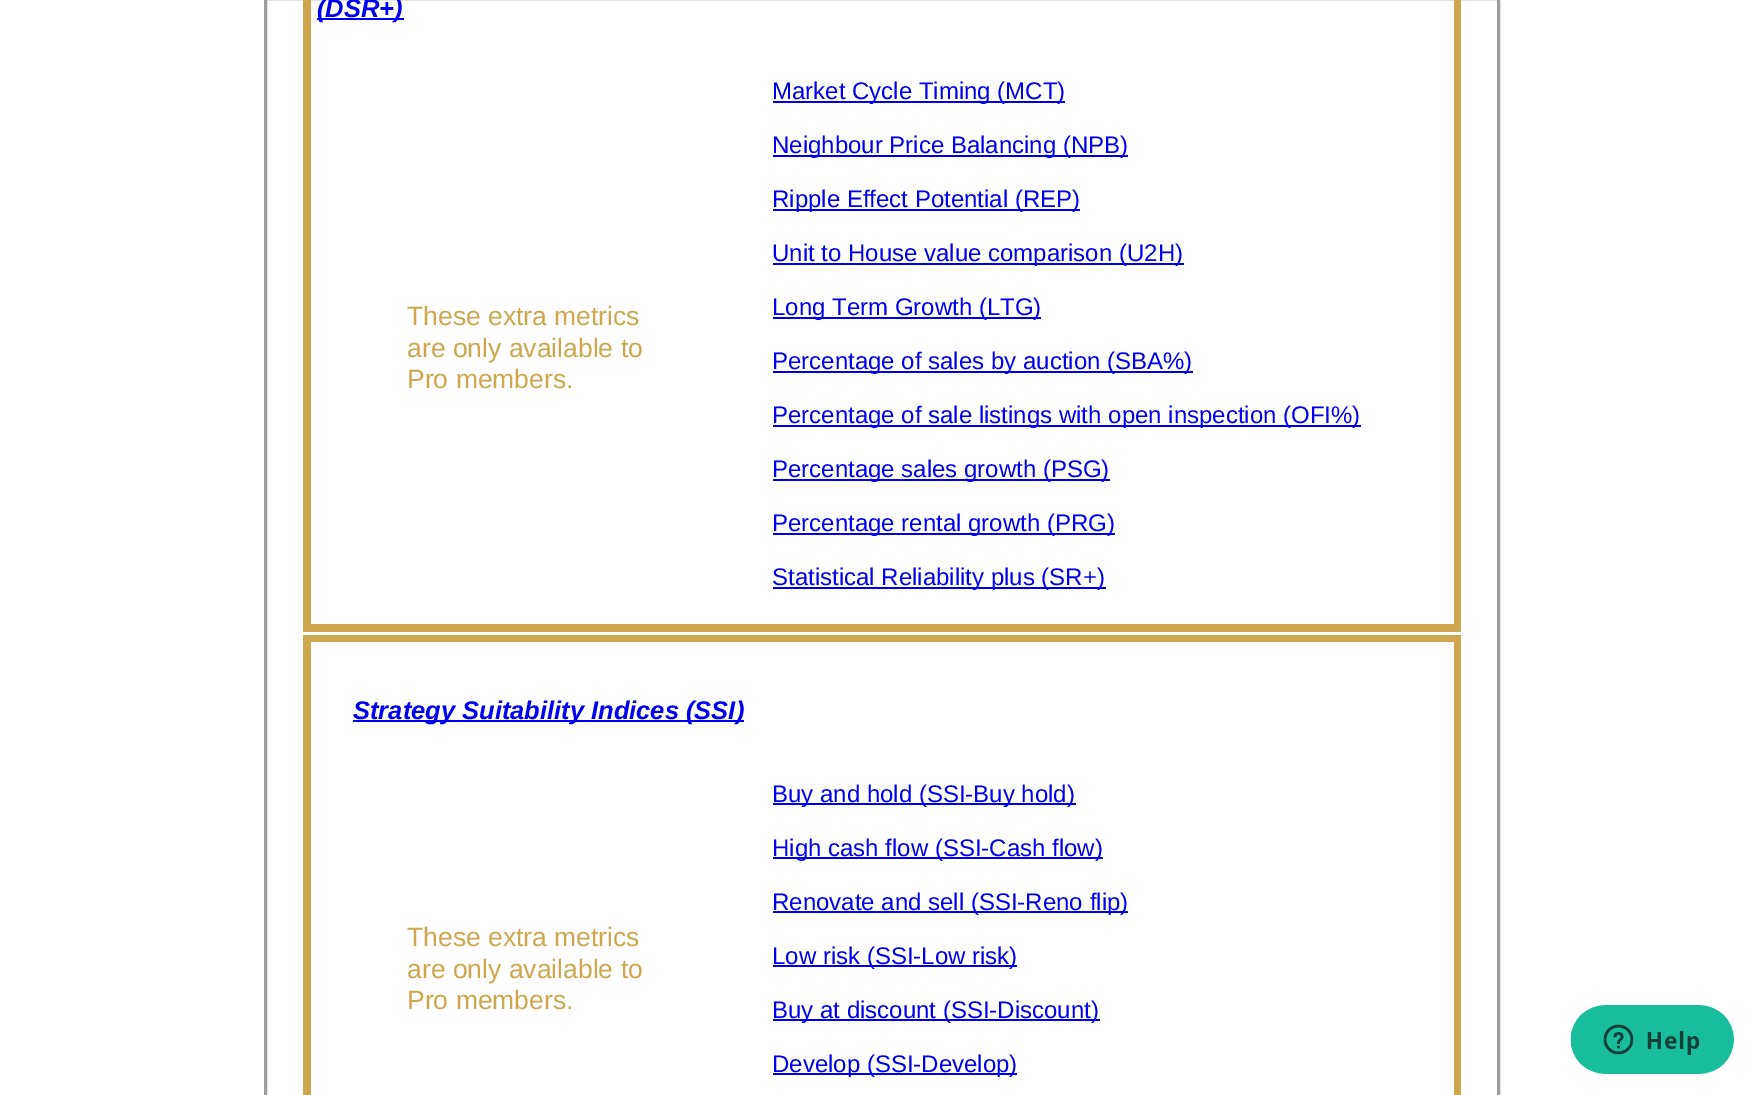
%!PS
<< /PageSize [1764 1095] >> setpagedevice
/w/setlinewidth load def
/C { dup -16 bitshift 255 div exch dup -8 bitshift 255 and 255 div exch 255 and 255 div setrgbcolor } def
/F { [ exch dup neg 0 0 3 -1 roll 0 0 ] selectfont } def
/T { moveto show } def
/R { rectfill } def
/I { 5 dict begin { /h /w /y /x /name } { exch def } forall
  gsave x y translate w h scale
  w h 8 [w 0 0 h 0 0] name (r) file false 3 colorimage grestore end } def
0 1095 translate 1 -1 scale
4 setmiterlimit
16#FFFFFF C
0 0 1764 1095 R
16#9D9D9D C
3 w
265.5 -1.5 1233 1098 rectstroke
16#CEA64E C
1454 0 7 632 R
303 624 1158 8 R
303 0 8 632 R
16#0000EE C
317 18 87 2 R
/LiberationSans-BoldItalic 25.5 F
(\(DSR+\)) 317 17 T
/LiberationSans-Regular 26.5 F
16#CEA64E C
(These extra metrics) 407 325 T
(are only available to) 407 357 T
(Pro members.) 407 388 T
16#0000EE C
773 101 292 2 R
/LiberationSans-Regular 24 F
(Market Cycle Timing \(MCT\)) 772 99 T
773 155 355 2 R
(Neighbour Price Balancing \(NPB\)) 772 153 T
773 209 307 2 R
(Ripple Effect Potential \(REP\)) 772 207 T
773 263 411 2 R
(Unit to House value comparison \(U2H\)) 772 261 T
773 317 268 2 R
(Long Term Growth \(LTG\)) 772 315 T
773 371 420 2 R
(Percentage of sales by auction \(SBA%\)) 772 369 T
773 425 588 2 R
(Percentage of sale listings with open inspection \(OFI%\)) 772 423 T
773 479 337 2 R
(Percentage sales growth \(PSG\)) 772 477 T
773 533 342 2 R
(Percentage rental growth \(PRG\)) 772 531 T
773 587 333 2 R
(Statistical Reliability plus \(SR+\)) 772 585 T
16#CEA64E C
303 635 1158 7 R
1454 635 7 460 R
303 635 8 460 R
16#0000EE C
353 720 391 2 R
/LiberationSans-BoldItalic 25.5 F
(Strategy Suitability Indices \(SSI\)) 353 719 T
/LiberationSans-Regular 26.5 F
16#CEA64E C
(These extra metrics) 407 946 T
(are only available to) 407 978 T
(Pro members.) 407 1009 T
16#0000EE C
773 803 303 2 R
/LiberationSans-Regular 24 F
(Buy and hold \(SSI-Buy hold\)) 772 802 T
773 857 330 2 R
(High cash flow \(SSI-Cash flow\)) 772 856 T
773 911 355 2 R
(Renovate and sell \(SSI-Reno flip\)) 772 910 T
773 965 244 2 R
(Low risk \(SSI-Low risk\)) 772 964 T
773 1019 327 2 R
(Buy at discount \(SSI-Discount\)) 772 1018 T
773 1073 244 2 R
(Develop \(SSI-Develop\)) 772 1072 T
(1.rgb) 1570 1005 164 69 I
showpage
